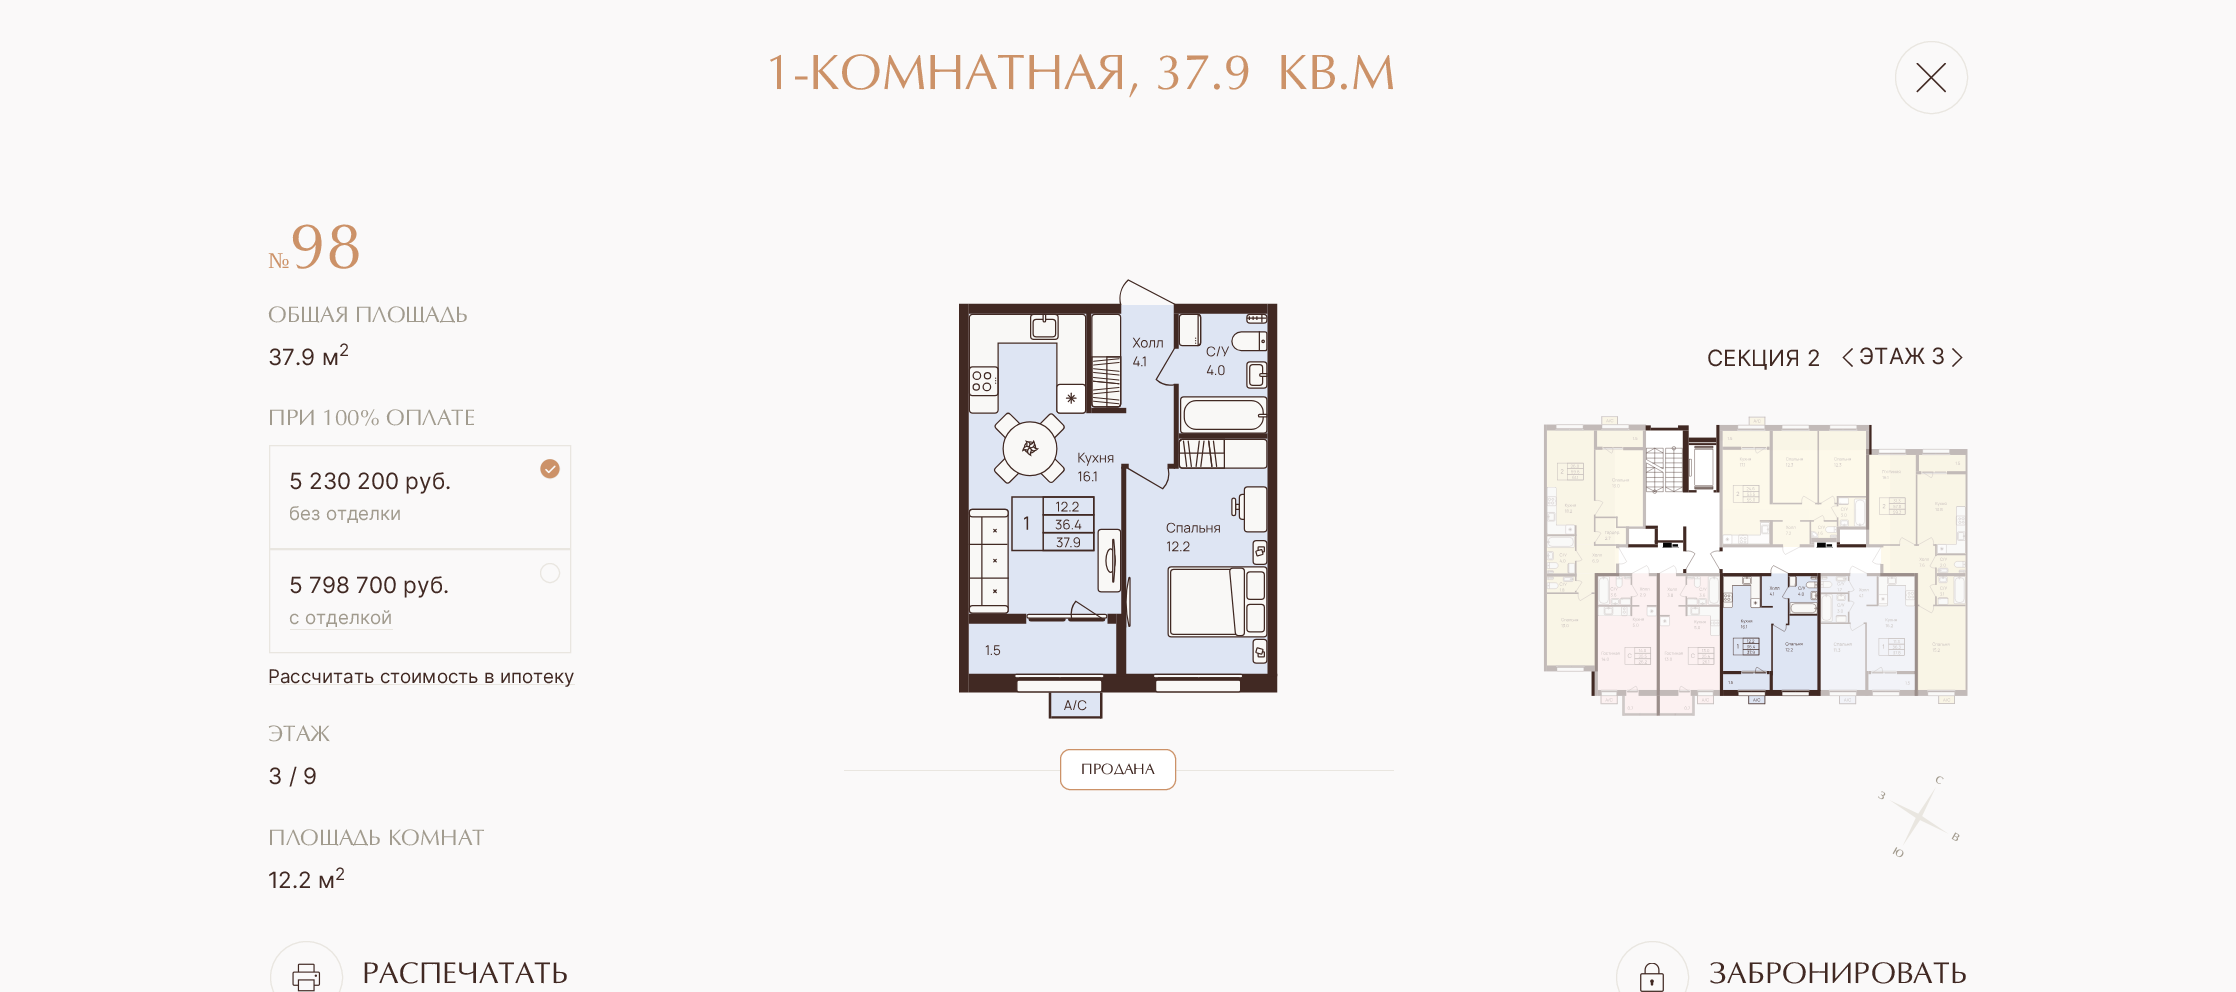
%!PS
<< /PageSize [2236 992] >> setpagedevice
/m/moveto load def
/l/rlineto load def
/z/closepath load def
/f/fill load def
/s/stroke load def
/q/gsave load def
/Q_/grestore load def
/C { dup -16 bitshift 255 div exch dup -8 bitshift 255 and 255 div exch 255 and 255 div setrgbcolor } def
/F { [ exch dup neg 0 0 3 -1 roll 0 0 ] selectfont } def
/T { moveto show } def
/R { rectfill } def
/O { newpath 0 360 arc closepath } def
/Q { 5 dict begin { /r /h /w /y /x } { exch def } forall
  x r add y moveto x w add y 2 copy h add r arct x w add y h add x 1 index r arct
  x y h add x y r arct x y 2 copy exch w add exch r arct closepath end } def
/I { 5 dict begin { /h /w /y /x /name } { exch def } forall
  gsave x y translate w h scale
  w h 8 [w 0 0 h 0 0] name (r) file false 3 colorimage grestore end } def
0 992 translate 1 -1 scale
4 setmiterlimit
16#FAF9F9 C
0 0 2236 992 R
/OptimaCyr-Regular 50 F
16#CC9268 C
(1-КОМНАТНАЯ, 37.9) 765 89 T
(КВ.М) 1277 89 T
16#E9E6E0 C
1931.5 77.5 36 O s
(1.rgb) 1916 63 30 30 I
/LiberationSerif-Regular 22.5 F
16#CC9268 C
(№) 268 268 T
/OptimaCyr-Regular 65 F
(98) 290 268 T
/OptimaCyr-Regular 22.5 F
16#A19B8E C
(ОБЩАЯ ПЛОЩАДЬ) 268 322 T
/Inter-Regular 22.5 F
16#412923 C
(37.9 м) 268 365 T
/Inter-Regular 17 F
(2) 339 356 T
/OptimaCyr-Regular 22.5 F
16#A19B8E C
(ПРИ 100% ОПЛАТЕ) 268 425 T
16#E9E6E0 C
269.5 445.5 301 103 rectstroke
550 469 9.5 O s
(2.rgb) 540 459 20 20 I
/Inter-Regular 22.5 F
16#412923 C
(5 230 200 руб.) 289 489 T
/Inter-Regular 18.75 F
16#A19B8E C
(без отделки) 289 520 T
16#E9E6E0 C
269.5 549.5 301 103 rectstroke
550 573 9.5 O s
/Inter-Regular 22.5 F
16#412923 C
(5 798 700 руб.) 289 593 T
/Inter-Regular 18.75 F
16#A19B8E C
(с отделкой) 289 624 T
16#E9E6E0 C
290 629 103 1 R
269 684 306 1 R
16#412923 C
(Рассчитать стоимость в ипотеку) 268 683 T
/OptimaCyr-Regular 22.5 F
16#A19B8E C
(ЭТАЖ) 268 741 T
/Inter-Regular 22.5 F
16#412923 C
(3 / 9) 268 784 T
/OptimaCyr-Regular 22.5 F
16#A19B8E C
(ПЛОЩАДЬ КОМНАТ) 268 845 T
/Inter-Regular 22.5 F
16#412923 C
(12.2 м) 268 888 T
/Inter-Regular 17 F
(2) 335 880 T
/Inter-Regular 22.5 F
(СЕКЦИЯ 2) 1707 366 T
1852 348 m 1 1 l -9 8.5 l 9 8.5 l -1 1 l -9.5 -9.5 l z f
(ЭТАЖ 3) 1859 364 T
1953 348 m -1 1 l 9 8.5 l -9 8.5 l 1 1 l 9.5 -9.5 l z f
(3.rgb) 1543 416 425 300 I
(4.rgb) 1878 776 82 82 I
(5.rgb) 959 279 319 440 I
16#E9E6E0 C
844 770 550 1 R
16#FFFFFF C
1060.5 749.5 115 40 9.5 Q q f Q_
16#CC9268 C
s
/OptimaCyr-Regular 15 F
16#412923 C
(ПРОДАНА) 1081 774 T
16#E9E6E0 C
306.5 977.5 36 O s
(6.rgb) 292 963 29 29 I
/OptimaCyr-Regular 30 F
16#412923 C
(РАСПЕЧАТАТЬ) 362 983 T
16#E9E6E0 C
1652.5 977.5 36 O s
(7.rgb) 1640 963 24 29 I
16#412923 C
(ЗАБРОНИРОВАТЬ) 1709 983 T
showpage
